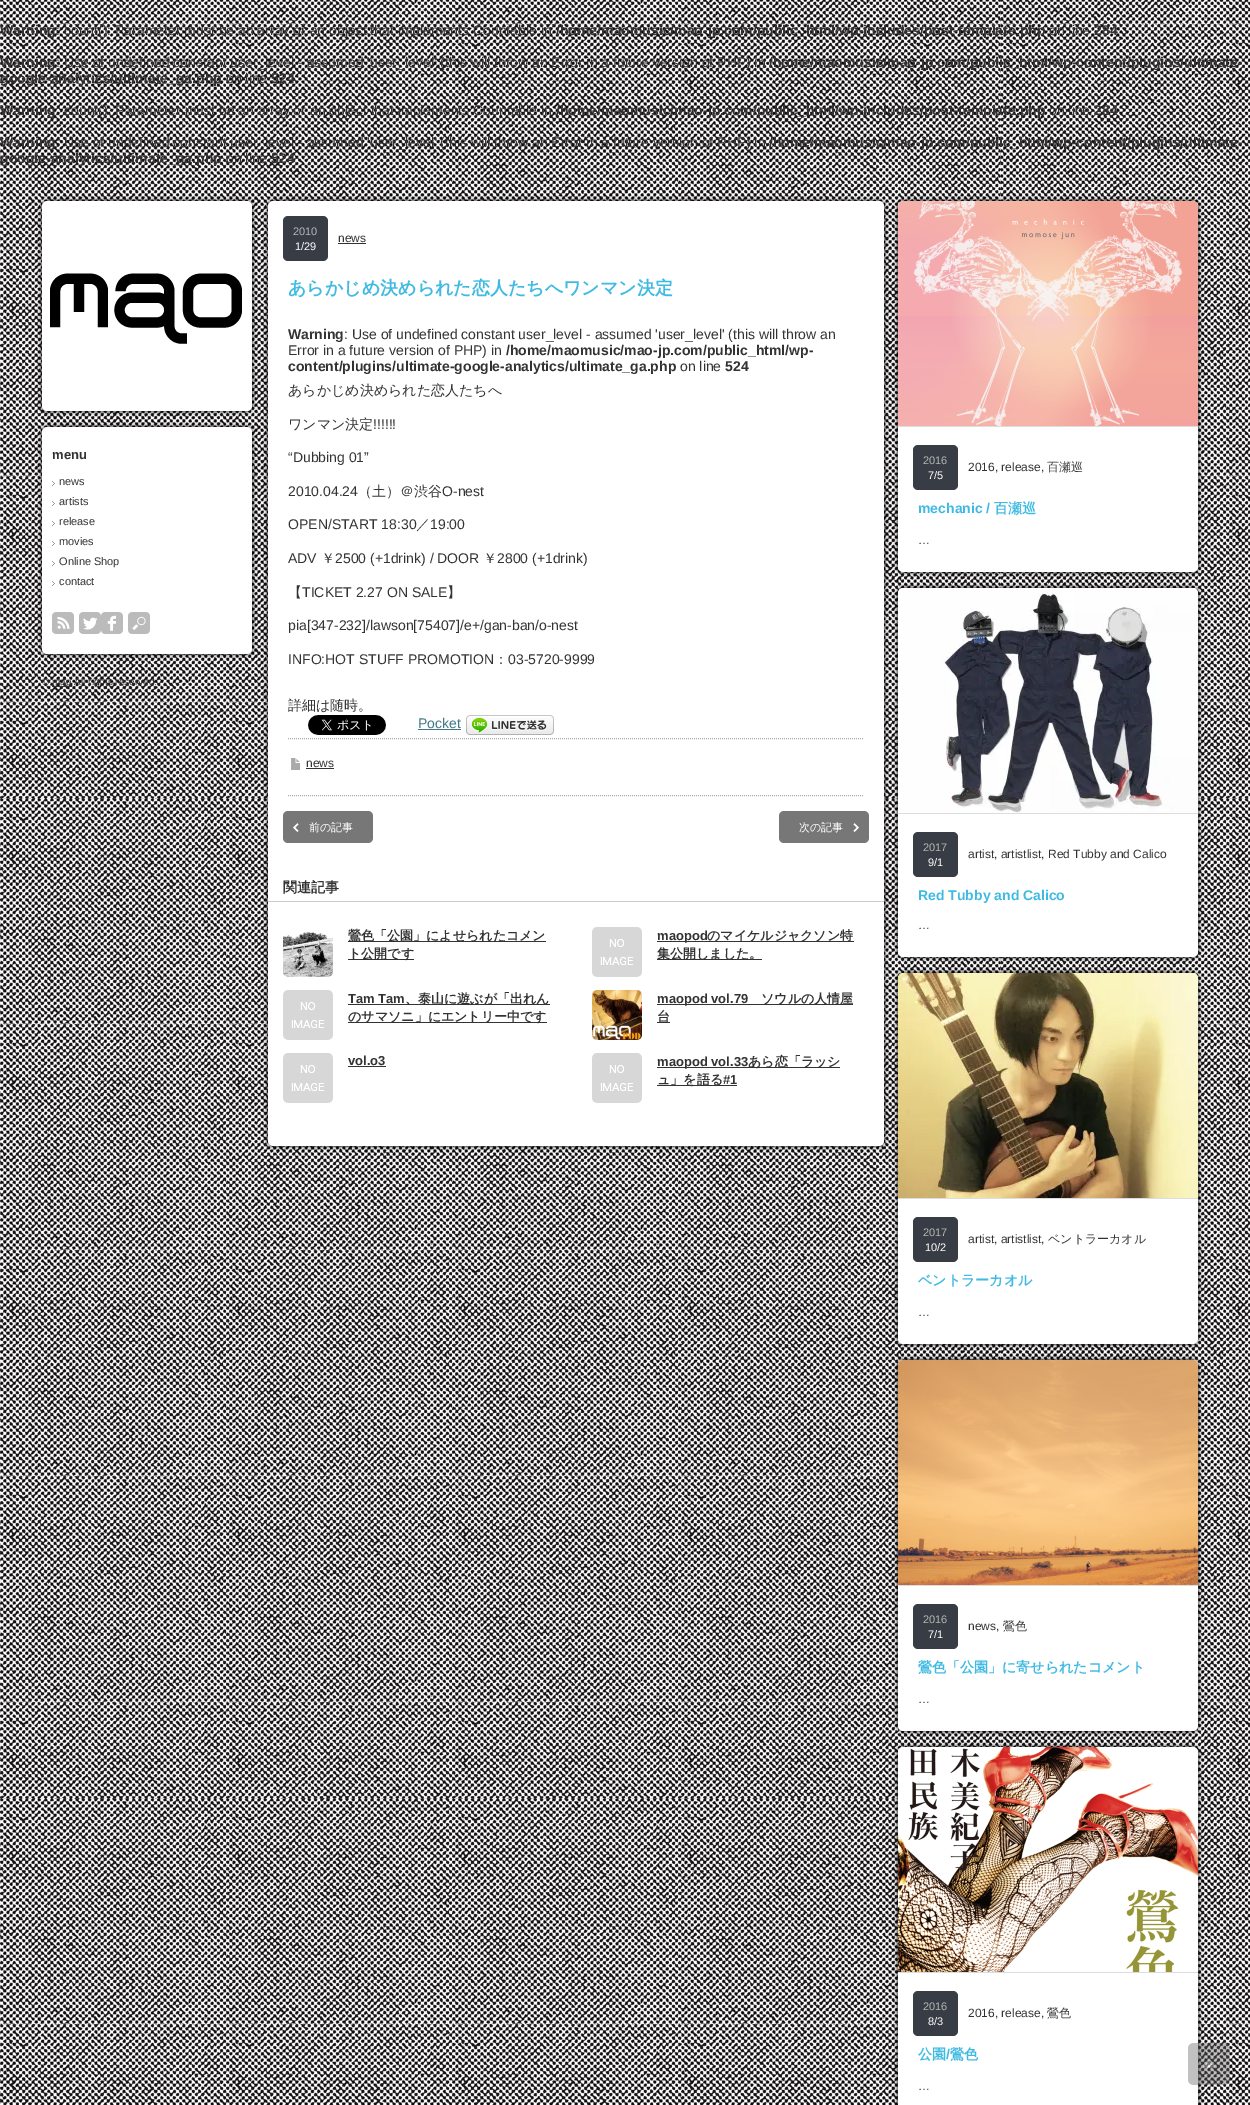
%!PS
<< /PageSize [1250 2105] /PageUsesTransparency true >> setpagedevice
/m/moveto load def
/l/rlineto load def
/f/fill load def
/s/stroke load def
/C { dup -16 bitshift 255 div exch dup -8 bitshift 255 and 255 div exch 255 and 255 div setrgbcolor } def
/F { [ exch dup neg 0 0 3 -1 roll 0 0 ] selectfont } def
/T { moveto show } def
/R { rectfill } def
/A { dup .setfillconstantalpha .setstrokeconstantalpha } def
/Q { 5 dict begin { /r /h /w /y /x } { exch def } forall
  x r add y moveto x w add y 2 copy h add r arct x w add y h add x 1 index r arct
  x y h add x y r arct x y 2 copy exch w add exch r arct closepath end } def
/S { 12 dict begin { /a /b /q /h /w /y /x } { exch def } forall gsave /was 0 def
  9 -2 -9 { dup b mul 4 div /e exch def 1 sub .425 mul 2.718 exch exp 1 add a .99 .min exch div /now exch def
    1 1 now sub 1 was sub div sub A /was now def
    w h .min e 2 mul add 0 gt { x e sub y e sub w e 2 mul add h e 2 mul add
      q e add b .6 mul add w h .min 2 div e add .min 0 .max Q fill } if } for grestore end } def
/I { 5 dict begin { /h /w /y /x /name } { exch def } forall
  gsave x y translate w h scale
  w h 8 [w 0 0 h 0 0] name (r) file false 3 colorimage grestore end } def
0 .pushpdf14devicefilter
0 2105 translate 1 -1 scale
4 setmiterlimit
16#FFFFFF C
0 0 1250 2105 R
(1.rgb) 0 0 1250 2105 I
/LiberationSans-Bold 14 F
16#333333 C
(Warning) 0 35 T
/LiberationSans-Regular 14 F
(: count\(\): Parameter must be an array or an object that implements Countable in) 56 35 T
/LiberationSans-Bold 14 F
(/home/maomusic/mao-jp.com/public_html/wp-includes/post-template.php) 556 35 T
/LiberationSans-Regular 14 F
(on line) 1049 35 T
/LiberationSans-Bold 14 F
(284) 1094 35 T
(Warning) 0 67 T
/LiberationSans-Regular 14 F
(: Use of undefined constant user_level - assumed 'user_level' \(this will throw an Error in a future version of PHP\) in) 56 67 T
/LiberationSans-Bold 14 F
(/home/maomusic/mao-jp.com/public_html/wp-content/plugins/ultimate-) 769 67 T
(google-analytics/ultimate_ga.php) 0 83 T
/LiberationSans-Regular 14 F
(on line) 226 83 T
/LiberationSans-Bold 14 F
(524) 271 83 T
(Warning) 0 115 T
/LiberationSans-Regular 14 F
(count\(\): Parameter must be an array or an object that implements Countable in) 64 115 T
/LiberationSans-Bold 14 F
(/home/maomusic/mao-jp.com/public_html/wp-includes/post-template.php) 556 115 T
/LiberationSans-Regular 14 F
(on line) 1049 115 T
/LiberationSans-Bold 14 F
(284) 1094 115 T
(Warning) 0 147 T
/LiberationSans-Regular 14 F
(: Use of undefined constant user_level - assumed 'user_level' \(this will throw an Error in a future version of PHP\) in) 56 147 T
/LiberationSans-Bold 14 F
(/home/maomusic/mao-jp.com/public_html/wp-content/plugins/ultimate-) 769 147 T
(google-analytics/ultimate_ga.php) 0 163 T
/LiberationSans-Regular 14 F
(on line) 226 163 T
/LiberationSans-Bold 14 F
(524) 271 163 T
16#000000 C
42 201 210 210 5 2.5 1 S
16#FFFFFF C
42 201 210 210 5 Q f
(2.rgb) 50 273 192 71 I
16#000000 C
42 427 210 227 5 2.5 1 S
16#FFFFFF C
42 427 210 227 5 Q f
/LiberationSans-Bold 13 F
16#333333 C
(menu) 52 459 T
(3.rgb) 52 481 3 5 I
/LiberationSans-Regular 11 F
(news) 59 485 T
(3.rgb) 52 501 3 5 I
(artists) 59 505 T
(3.rgb) 52 521 3 5 I
(release) 59 525 T
(3.rgb) 52 541 3 5 I
(movies) 59 545 T
(3.rgb) 52 561 3 5 I
(Online Shop) 59 565 T
(3.rgb) 52 581 3 5 I
(contact) 59 585 T
(4.rgb) 52 612 22 22 I
(5.rgb) 79 612 22 22 I
(6.rgb) 101 612 22 22 I
(7.rgb) 128 612 22 22 I
/LiberationSans-Regular 10 F
(© mao All rights reserved.) 42 685 T
52 686 20 1 R
16#000000 C
268 201 616 945 5 2.5 1 S
16#FFFFFF C
268 201 616 945 5 Q f
16#383C45 C
283 216 45 45 5 Q f
/LiberationSans-Regular 11 F
16#B3B5B4 C
(2010) 293 235 T
16#FFFFFF C
(1/29) 295 250 T
/LiberationSans-Regular 12 F
16#333333 C
(news) 338 242 T
338 243 28 1 R
/WenQuanYiZenHei-Bold 18 F
16#3FBAE3 C
(あらかじめ決められた恋人たちへワンマン決定) 288 294 T
/LiberationSans-Bold 14 F
16#333333 C
(Warning) 288 339 T
/LiberationSans-Regular 14 F
(: Use of undefined constant user_level - assumed 'user_level' \(this will throw an) 344 339 T
(Error in a future version of PHP\) in) 288 355 T
/LiberationSans-Bold 14 F
(/home/maomusic/mao-jp.com/public_html/wp-) 506 355 T
(content/plugins/ultimate-google-analytics/ultimate_ga.php) 288 371 T
/LiberationSans-Regular 14 F
(on line) 680 371 T
/LiberationSans-Bold 14 F
(524) 725 371 T
/WenQuanYiZenHei-Medium 14 F
(あらかじめ決められた恋人たちへ) 288 395 T
(ワンマン決定) 288 429 T
/LiberationSans-Regular 14 F
(!!!!!!) 373 429 T
(“Dubbing 01”) 288 462 T
(2010.04.24) 288 496 T
/WenQuanYiZenHei-Medium 14 F
(（土）＠渋谷) 358 496 T
/LiberationSans-Regular 14 F
(O-nest) 442 496 T
(OPEN/START 18:30) 288 529 T
/WenQuanYiZenHei-Medium 14 F
(／) 416 529 T
/LiberationSans-Regular 14 F
(19:00) 430 529 T
(ADV) 288 563 T
/WenQuanYiZenHei-Medium 14 F
(￥) 321 563 T
/LiberationSans-Regular 14 F
(2500 \(+1drink\) / DOOR) 335 563 T
/WenQuanYiZenHei-Medium 14 F
(￥) 483 563 T
/LiberationSans-Regular 14 F
(2800 \(+1drink\)) 497 563 T
/WenQuanYiZenHei-Medium 14 F
(【) 288 597 T
/LiberationSans-Regular 14 F
(TICKET 2.27 ON SALE) 302 597 T
/WenQuanYiZenHei-Medium 14 F
(】) 447 597 T
/LiberationSans-Regular 14 F
(pia[347-232]/lawson[75407]/e+/gan-ban/o-nest) 288 630 T
(INFO:HOT STUFF PROMOTION) 288 664 T
/WenQuanYiZenHei-Medium 14 F
(：) 494 664 T
/LiberationSans-Regular 14 F
(03-5720-9999) 508 664 T
/WenQuanYiZenHei-Medium 14 F
(詳細は随時。) 288 710 T
(8.rgb) 308 715 78 20 I
/LiberationSans-Regular 14 F
16#3F7985 C
(Pocket) 418 728 T
418 729 43 1 R
(9.rgb) 466 715 88 20 I
16#AAAAAA C
[1 1] 0 setdash
288 738.5 m 576 0 l s
288 795.5 m 576 0 l s
(10.rgb) 291 758 10 12 I
/LiberationSans-Regular 12 F
16#333333 C
(news) 306 767 T
306 768 28 1 R
16#777777 C
283 811 90 32 5 Q f
(11.rgb) 293 823 6 9 I
/WenQuanYiZenHei-Medium 11 F
16#FFFFFF C
(前の記事) 309 831 T
16#777777 C
779 811 90 32 5 Q f
(12.rgb) 853 823 6 9 I
16#FFFFFF C
(次の記事) 799 831 T
16#CCCCCC C
268 901 616 1 R
/WenQuanYiZenHei-Bold 14 F
16#333333 C
(関連記事) 283 892 T
(13.rgb) 283 931 50 46 I
348 941 198 1 R
/WenQuanYiZenHei-Bold 13 F
(鶯色「公園」によせられたコメン) 348 940 T
348 959 66 1 R
(ト公開です) 348 958 T
(14.rgb) 592 927 50 50 I
657 941 197 1 R
/LiberationSans-Bold 13 F
(maopod) 657 940 T
/WenQuanYiZenHei-Bold 13 F
(のマイケルジャクソン特) 707 940 T
657 959 105 1 R
(集公開しました。) 657 958 T
(15.rgb) 283 990 50 50 I
/LiberationSans-Bold 13 F
(Tam Tam) 348 1003 T
348 1004 202 1 R
/WenQuanYiZenHei-Bold 13 F
(、泰山に遊ぶが「出れん) 405 1003 T
348 1022 199 1 R
(のサマソニ」にエントリー中です) 348 1021 T
(16.rgb) 592 990 50 50 I
657 1004 196 1 R
/LiberationSans-Bold 13 F
(maopod vol.79) 657 1003 T
/WenQuanYiZenHei-Bold 13 F
(ソウルの人情屋) 761 1003 T
657 1022 13 1 R
(台) 657 1021 T
(14.rgb) 283 1053 50 50 I
/LiberationSans-Bold 13 F
(vol.o3) 348 1065 T
348 1066 38 1 R
(14.rgb) 592 1053 50 50 I
657 1067 183 1 R
(maopod vol.33) 657 1066 T
/WenQuanYiZenHei-Bold 13 F
(あら恋「ラッシ) 748 1066 T
657 1085 80 1 R
(ュ」を語る) 657 1084 T
/LiberationSans-Bold 13 F
(#1) 723 1084 T
16#000000 C
898 201 300 371 5 2.5 1 S
16#FFFFFF C
898 201 300 371 5 Q f
(17.rgb) 898 201 300 225 I
16#DDDDDD C
898 426 300 1 R
16#383C45 C
913 445 45 45 5 Q f
/LiberationSans-Regular 11 F
16#B3B5B4 C
(2016) 923 464 T
16#FFFFFF C
(7/5) 928 479 T
/LiberationSans-Regular 12 F
16#333333 C
(2016, release,) 968 471 T
/WenQuanYiZenHei-Medium 12 F
(百瀬巡) 1047 471 T
/LiberationSans-Bold 14 F
16#3FBAE3 C
(mechanic /) 918 513 T
/WenQuanYiZenHei-Bold 14 F
(百瀬巡) 994 513 T
/LiberationSans-Regular 12 F
16#333333 C
(…) 918 544 T
16#000000 C
898 588 300 369 5 2.5 1 S
16#FFFFFF C
898 588 300 369 5 Q f
(18.rgb) 898 588 300 225 I
16#DDDDDD C
898 813 300 1 R
16#383C45 C
913 832 45 45 5 Q f
/LiberationSans-Regular 11 F
16#B3B5B4 C
(2017) 923 851 T
16#FFFFFF C
(9/1) 928 866 T
/LiberationSans-Regular 12 F
16#333333 C
(artist, artistlist, Red Tubby and Calico) 968 858 T
/LiberationSans-Bold 14 F
16#3FBAE3 C
(Red Tubby and Calico) 918 900 T
/LiberationSans-Regular 12 F
16#333333 C
(…) 918 929 T
16#000000 C
898 973 300 371 5 2.5 1 S
16#FFFFFF C
898 973 300 371 5 Q f
(19.rgb) 898 973 300 225 I
16#DDDDDD C
898 1198 300 1 R
16#383C45 C
913 1217 45 45 5 Q f
/LiberationSans-Regular 11 F
16#B3B5B4 C
(2017) 923 1236 T
16#FFFFFF C
(10/2) 925 1251 T
/LiberationSans-Regular 12 F
16#333333 C
(artist, artistlist,) 968 1243 T
/WenQuanYiZenHei-Medium 12 F
(ベントラーカオル) 1048 1243 T
/WenQuanYiZenHei-Bold 14 F
16#3FBAE3 C
(ベントラーカオル) 918 1285 T
/LiberationSans-Regular 12 F
16#333333 C
(…) 918 1316 T
16#000000 C
898 1360 300 371 5 2.5 1 S
16#FFFFFF C
898 1360 300 371 5 Q f
(20.rgb) 898 1360 300 225 I
16#DDDDDD C
898 1585 300 1 R
16#383C45 C
913 1604 45 45 5 Q f
/LiberationSans-Regular 11 F
16#B3B5B4 C
(2016) 923 1623 T
16#FFFFFF C
(7/1) 928 1638 T
/LiberationSans-Regular 12 F
16#333333 C
(news,) 968 1630 T
/WenQuanYiZenHei-Medium 12 F
(鶯色) 1003 1630 T
/WenQuanYiZenHei-Bold 14 F
16#3FBAE3 C
(鶯色「公園」に寄せられたコメント) 918 1672 T
/LiberationSans-Regular 12 F
16#333333 C
(…) 918 1703 T
16#000000 C
898 1747 300 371 5 2.5 1 S
16#FFFFFF C
898 1747 300 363 5 Q f
(21.rgb) 898 1747 300 225 I
16#DDDDDD C
898 1972 300 1 R
16#383C45 C
913 1991 45 45 5 Q f
/LiberationSans-Regular 11 F
16#B3B5B4 C
(2016) 923 2010 T
16#FFFFFF C
(8/3) 928 2025 T
/LiberationSans-Regular 12 F
16#333333 C
(2016, release,) 968 2017 T
/WenQuanYiZenHei-Medium 12 F
(鶯色) 1047 2017 T
/WenQuanYiZenHei-Bold 14 F
16#3FBAE3 C
(公園) 918 2059 T
/LiberationSans-Bold 14 F
(/) 946 2059 T
/WenQuanYiZenHei-Bold 14 F
(鶯色) 950 2059 T
/LiberationSans-Regular 12 F
16#333333 C
(…) 918 2090 T
(22.rgb) 1188 2043 42 42 I
.poppdf14devicefilter showpage
